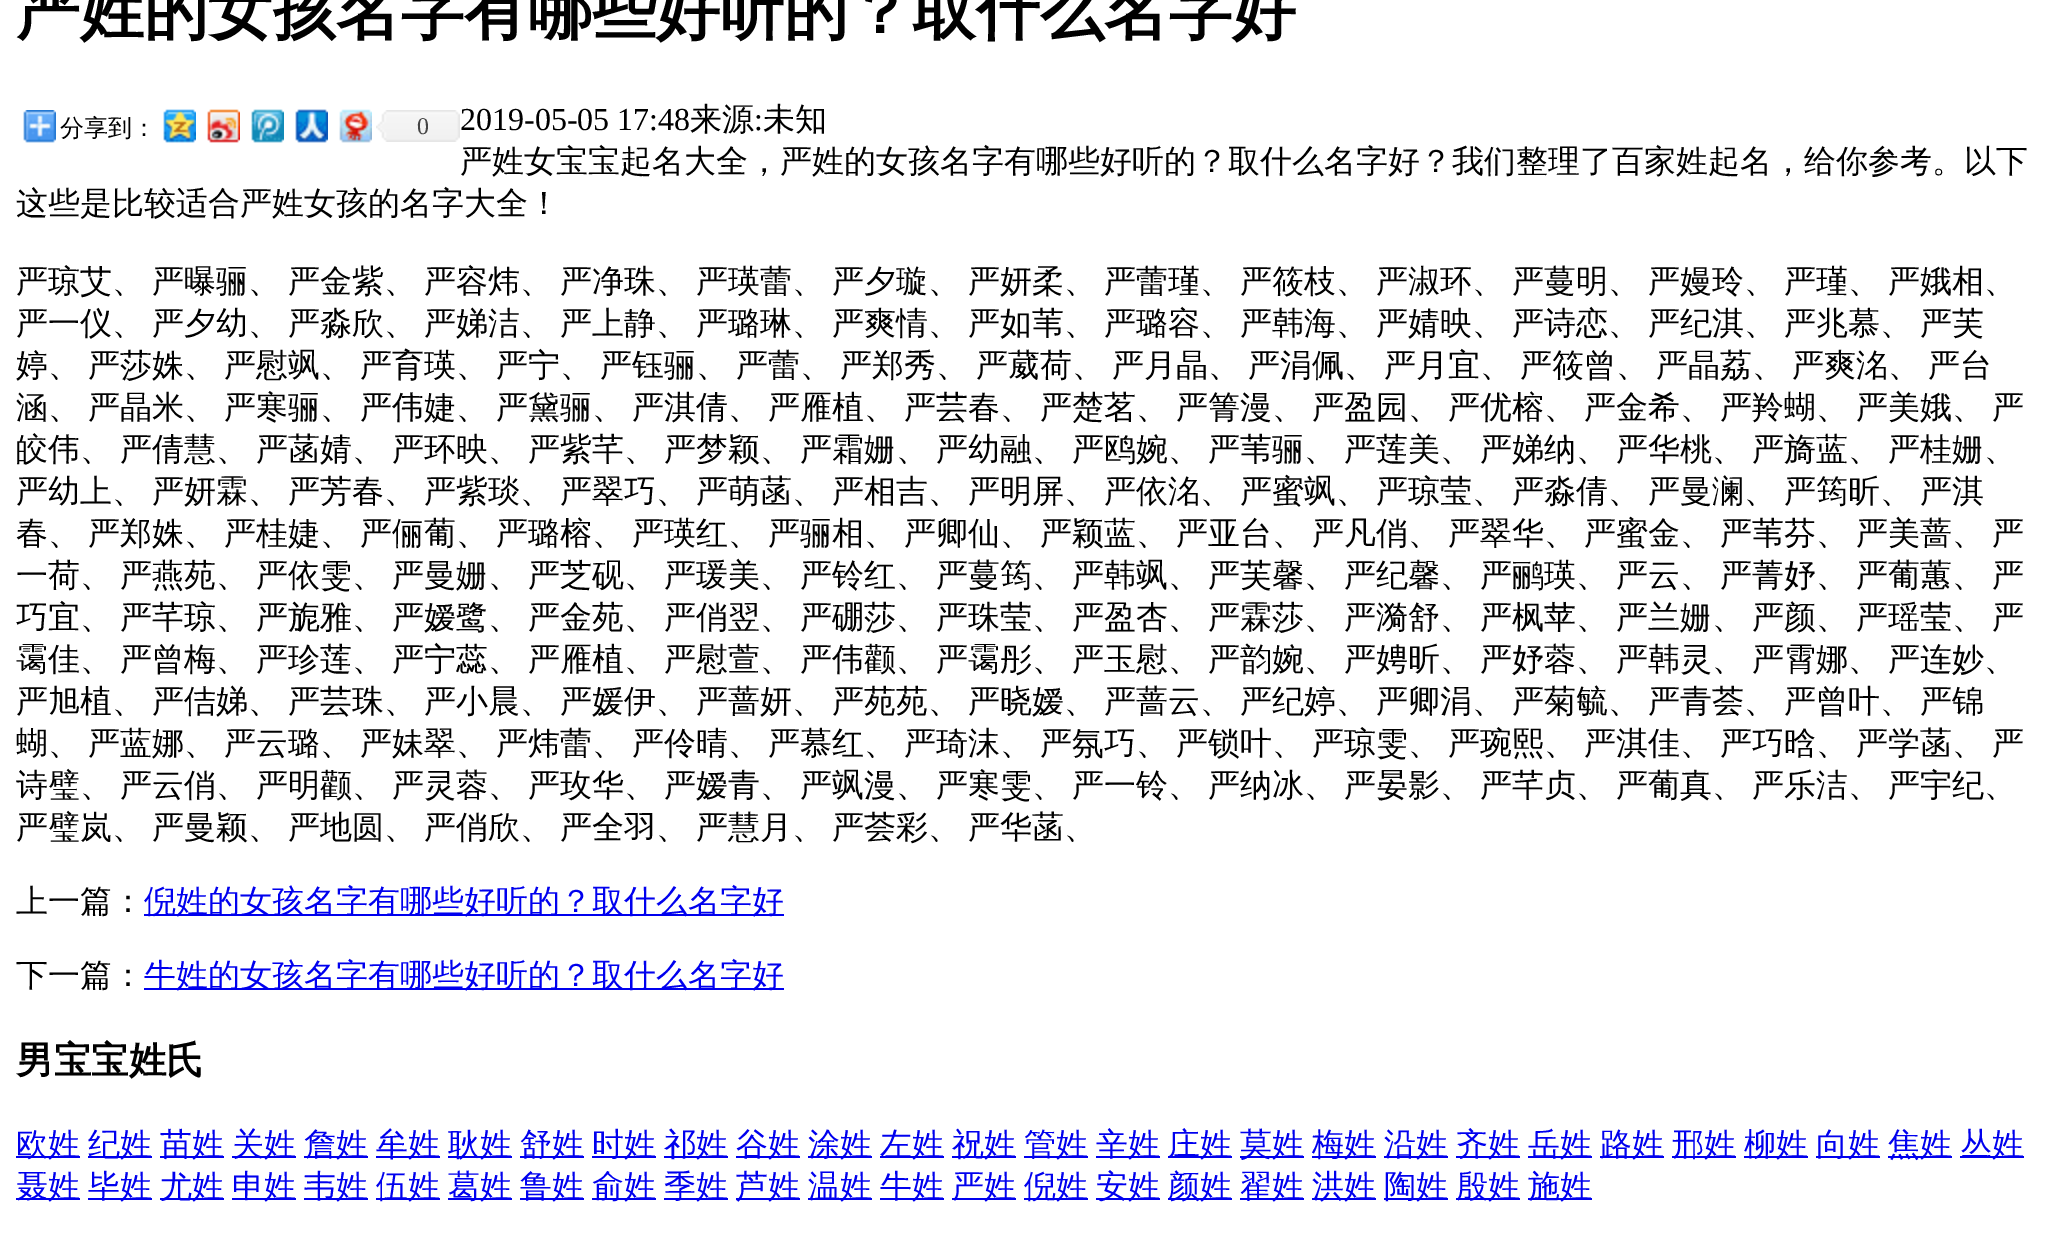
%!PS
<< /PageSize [2046 1258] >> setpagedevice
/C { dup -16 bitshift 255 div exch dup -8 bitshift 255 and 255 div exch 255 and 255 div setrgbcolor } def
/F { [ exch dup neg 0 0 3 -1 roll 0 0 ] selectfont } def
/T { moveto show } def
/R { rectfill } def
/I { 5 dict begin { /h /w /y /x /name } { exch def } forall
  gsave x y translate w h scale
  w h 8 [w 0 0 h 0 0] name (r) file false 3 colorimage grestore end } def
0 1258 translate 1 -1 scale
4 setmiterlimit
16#FFFFFF C
0 0 2046 1258 R
/WenQuanYiZenHei-Bold 64 F
16#000000 C
(严姓的女孩名字有哪些好听的？取什么名字好) 16 33 T
(1.rgb) 23 110 33 33 I
/WenQuanYiZenHei-Medium 24 F
(分享到：) 60 136 T
(2.rgb) 163 109 33 34 I
(3.rgb) 207 109 33 34 I
(4.rgb) 251 109 33 34 I
(5.rgb) 295 109 33 34 I
(6.rgb) 339 109 33 34 I
(7.rgb) 376 110 84 32 I
/LiberationSerif-Regular 24 F
16#454545 C
(0) 417 134 T
/LiberationSerif-Regular 32 F
16#000000 C
(2019-05-05 17:48) 460 130 T
/WenQuanYiZenHei-Medium 32 F
(来源) 690 130 T
/LiberationSerif-Regular 32 F
(:) 754 130 T
/WenQuanYiZenHei-Medium 32 F
(未知) 763 130 T
(严姓女宝宝起名大全，严姓的女孩名字有哪些好听的？取什么名字好？我们整理了百家姓起名，给你参考。以下) 460 172 T
(这些是比较适合严姓女孩的名字大全！) 16 214 T
(严琼艾、) 16 292 T
(严曝骊、) 152 292 T
(严金紫、) 288 292 T
(严容炜、) 424 292 T
(严净珠、) 560 292 T
(严瑛蕾、) 696 292 T
(严夕璇、) 832 292 T
(严妍柔、) 968 292 T
(严蕾瑾、) 1104 292 T
(严筱枝、) 1240 292 T
(严淑环、) 1376 292 T
(严蔓明、) 1512 292 T
(严嫚玲、) 1648 292 T
(严瑾、) 1784 292 T
(严娥相、) 1888 292 T
(严一仪、) 16 334 T
(严夕幼、) 152 334 T
(严淼欣、) 288 334 T
(严娣洁、) 424 334 T
(严上静、) 560 334 T
(严璐琳、) 696 334 T
(严爽情、) 832 334 T
(严如苇、) 968 334 T
(严璐容、) 1104 334 T
(严韩海、) 1240 334 T
(严婧映、) 1376 334 T
(严诗恋、) 1512 334 T
(严纪淇、) 1648 334 T
(严兆慕、) 1784 334 T
(严芙) 1920 334 T
(婷、) 16 376 T
(严莎姝、) 88 376 T
(严慰飒、) 224 376 T
(严育瑛、) 360 376 T
(严宁、) 496 376 T
(严钰骊、) 600 376 T
(严蕾、) 736 376 T
(严郑秀、) 840 376 T
(严葳荷、) 976 376 T
(严月晶、) 1112 376 T
(严涓佩、) 1248 376 T
(严月宜、) 1384 376 T
(严筱曾、) 1520 376 T
(严晶荔、) 1656 376 T
(严爽洺、) 1792 376 T
(严台) 1928 376 T
(涵、) 16 418 T
(严晶米、) 88 418 T
(严寒骊、) 224 418 T
(严伟婕、) 360 418 T
(严黛骊、) 496 418 T
(严淇倩、) 632 418 T
(严雁植、) 768 418 T
(严芸春、) 904 418 T
(严楚茗、) 1040 418 T
(严箐漫、) 1176 418 T
(严盈园、) 1312 418 T
(严优榕、) 1448 418 T
(严金希、) 1584 418 T
(严羚蝴、) 1720 418 T
(严美娥、) 1856 418 T
(严) 1992 418 T
(皎伟、) 16 460 T
(严倩慧、) 120 460 T
(严菡婧、) 256 460 T
(严环映、) 392 460 T
(严紫芊、) 528 460 T
(严梦颖、) 664 460 T
(严霜姗、) 800 460 T
(严幼融、) 936 460 T
(严鸥婉、) 1072 460 T
(严苇骊、) 1208 460 T
(严莲美、) 1344 460 T
(严娣纳、) 1480 460 T
(严华桃、) 1616 460 T
(严旖蓝、) 1752 460 T
(严桂姗、) 1888 460 T
(严幼上、) 16 502 T
(严妍霖、) 152 502 T
(严芳春、) 288 502 T
(严紫琰、) 424 502 T
(严翠巧、) 560 502 T
(严萌菡、) 696 502 T
(严相吉、) 832 502 T
(严明屏、) 968 502 T
(严依洺、) 1104 502 T
(严蜜飒、) 1240 502 T
(严琼莹、) 1376 502 T
(严淼倩、) 1512 502 T
(严曼澜、) 1648 502 T
(严筠昕、) 1784 502 T
(严淇) 1920 502 T
(春、) 16 544 T
(严郑姝、) 88 544 T
(严桂婕、) 224 544 T
(严俪葡、) 360 544 T
(严璐榕、) 496 544 T
(严瑛红、) 632 544 T
(严骊相、) 768 544 T
(严卿仙、) 904 544 T
(严颖蓝、) 1040 544 T
(严亚台、) 1176 544 T
(严凡俏、) 1312 544 T
(严翠华、) 1448 544 T
(严蜜金、) 1584 544 T
(严苇芬、) 1720 544 T
(严美蔷、) 1856 544 T
(严) 1992 544 T
(一荷、) 16 586 T
(严燕苑、) 120 586 T
(严依雯、) 256 586 T
(严曼姗、) 392 586 T
(严芝砚、) 528 586 T
(严瑗美、) 664 586 T
(严铃红、) 800 586 T
(严蔓筠、) 936 586 T
(严韩飒、) 1072 586 T
(严芙馨、) 1208 586 T
(严纪馨、) 1344 586 T
(严鹂瑛、) 1480 586 T
(严云、) 1616 586 T
(严菁妤、) 1720 586 T
(严葡蕙、) 1856 586 T
(严) 1992 586 T
(巧宜、) 16 628 T
(严芊琼、) 120 628 T
(严旎雅、) 256 628 T
(严嫒鹭、) 392 628 T
(严金苑、) 528 628 T
(严俏翌、) 664 628 T
(严硼莎、) 800 628 T
(严珠莹、) 936 628 T
(严盈杏、) 1072 628 T
(严霖莎、) 1208 628 T
(严漪舒、) 1344 628 T
(严枫苹、) 1480 628 T
(严兰姗、) 1616 628 T
(严颜、) 1752 628 T
(严瑶莹、) 1856 628 T
(严) 1992 628 T
(霭佳、) 16 670 T
(严曾梅、) 120 670 T
(严珍莲、) 256 670 T
(严宁蕊、) 392 670 T
(严雁植、) 528 670 T
(严慰萱、) 664 670 T
(严伟颧、) 800 670 T
(严霭彤、) 936 670 T
(严玉慰、) 1072 670 T
(严韵婉、) 1208 670 T
(严娉昕、) 1344 670 T
(严妤蓉、) 1480 670 T
(严韩灵、) 1616 670 T
(严霄娜、) 1752 670 T
(严连妙、) 1888 670 T
(严旭植、) 16 712 T
(严佶娣、) 152 712 T
(严芸珠、) 288 712 T
(严小晨、) 424 712 T
(严媛伊、) 560 712 T
(严蔷妍、) 696 712 T
(严苑苑、) 832 712 T
(严晓嫒、) 968 712 T
(严蔷云、) 1104 712 T
(严纪婷、) 1240 712 T
(严卿涓、) 1376 712 T
(严菊毓、) 1512 712 T
(严青荟、) 1648 712 T
(严曾叶、) 1784 712 T
(严锦) 1920 712 T
(蝴、) 16 754 T
(严蓝娜、) 88 754 T
(严云璐、) 224 754 T
(严妹翠、) 360 754 T
(严炜蕾、) 496 754 T
(严伶晴、) 632 754 T
(严慕红、) 768 754 T
(严琦沫、) 904 754 T
(严氛巧、) 1040 754 T
(严锁叶、) 1176 754 T
(严琼雯、) 1312 754 T
(严琬熙、) 1448 754 T
(严淇佳、) 1584 754 T
(严巧晗、) 1720 754 T
(严学菡、) 1856 754 T
(严) 1992 754 T
(诗璧、) 16 796 T
(严云俏、) 120 796 T
(严明颧、) 256 796 T
(严灵蓉、) 392 796 T
(严玫华、) 528 796 T
(严嫒青、) 664 796 T
(严飒漫、) 800 796 T
(严寒雯、) 936 796 T
(严一铃、) 1072 796 T
(严纳冰、) 1208 796 T
(严晏影、) 1344 796 T
(严芊贞、) 1480 796 T
(严葡真、) 1616 796 T
(严乐洁、) 1752 796 T
(严宇纪、) 1888 796 T
(严璧岚、) 16 838 T
(严曼颖、) 152 838 T
(严地圆、) 288 838 T
(严俏欣、) 424 838 T
(严全羽、) 560 838 T
(严慧月、) 696 838 T
(严荟彩、) 832 838 T
(严华菡、) 968 838 T
(上一篇：) 16 912 T
16#0000EE C
144 914 640 2 R
(倪姓的女孩名字有哪些好听的？取什么名字好) 144 912 T
16#000000 C
(下一篇：) 16 986 T
16#0000EE C
144 988 640 2 R
(牛姓的女孩名字有哪些好听的？取什么名字好) 144 986 T
/WenQuanYiZenHei-Bold 37.5 F
16#000000 C
(男宝宝姓氏) 16 1073 T
16#0000EE C
16 1156 64 2 R
/WenQuanYiZenHei-Medium 32 F
(欧姓) 16 1155 T
88 1156 64 2 R
(纪姓) 88 1155 T
160 1156 64 2 R
(苗姓) 160 1155 T
232 1156 64 2 R
(关姓) 232 1155 T
304 1156 64 2 R
(詹姓) 304 1155 T
376 1156 64 2 R
(牟姓) 376 1155 T
448 1156 64 2 R
(耿姓) 448 1155 T
520 1156 64 2 R
(舒姓) 520 1155 T
592 1156 64 2 R
(时姓) 592 1155 T
664 1156 64 2 R
(祁姓) 664 1155 T
736 1156 64 2 R
(谷姓) 736 1155 T
808 1156 64 2 R
(涂姓) 808 1155 T
880 1156 64 2 R
(左姓) 880 1155 T
952 1156 64 2 R
(祝姓) 952 1155 T
1024 1156 64 2 R
(管姓) 1024 1155 T
1096 1156 64 2 R
(辛姓) 1096 1155 T
1168 1156 64 2 R
(庄姓) 1168 1155 T
1240 1156 64 2 R
(莫姓) 1240 1155 T
1312 1156 64 2 R
(梅姓) 1312 1155 T
1384 1156 64 2 R
(沿姓) 1384 1155 T
1456 1156 64 2 R
(齐姓) 1456 1155 T
1528 1156 64 2 R
(岳姓) 1528 1155 T
1600 1156 64 2 R
(路姓) 1600 1155 T
1672 1156 64 2 R
(邢姓) 1672 1155 T
1744 1156 64 2 R
(柳姓) 1744 1155 T
1816 1156 64 2 R
(向姓) 1816 1155 T
1888 1156 64 2 R
(焦姓) 1888 1155 T
1960 1156 64 2 R
(丛姓) 1960 1155 T
16 1198 64 2 R
(聂姓) 16 1197 T
88 1198 64 2 R
(毕姓) 88 1197 T
160 1198 64 2 R
(尤姓) 160 1197 T
232 1198 64 2 R
(申姓) 232 1197 T
304 1198 64 2 R
(韦姓) 304 1197 T
376 1198 64 2 R
(伍姓) 376 1197 T
448 1198 64 2 R
(葛姓) 448 1197 T
520 1198 64 2 R
(鲁姓) 520 1197 T
592 1198 64 2 R
(俞姓) 592 1197 T
664 1198 64 2 R
(季姓) 664 1197 T
736 1198 64 2 R
(芦姓) 736 1197 T
808 1198 64 2 R
(温姓) 808 1197 T
880 1198 64 2 R
(牛姓) 880 1197 T
952 1198 64 2 R
(严姓) 952 1197 T
1024 1198 64 2 R
(倪姓) 1024 1197 T
1096 1198 64 2 R
(安姓) 1096 1197 T
1168 1198 64 2 R
(颜姓) 1168 1197 T
1240 1198 64 2 R
(翟姓) 1240 1197 T
1312 1198 64 2 R
(洪姓) 1312 1197 T
1384 1198 64 2 R
(陶姓) 1384 1197 T
1456 1198 64 2 R
(殷姓) 1456 1197 T
1528 1198 64 2 R
(施姓) 1528 1197 T
showpage
